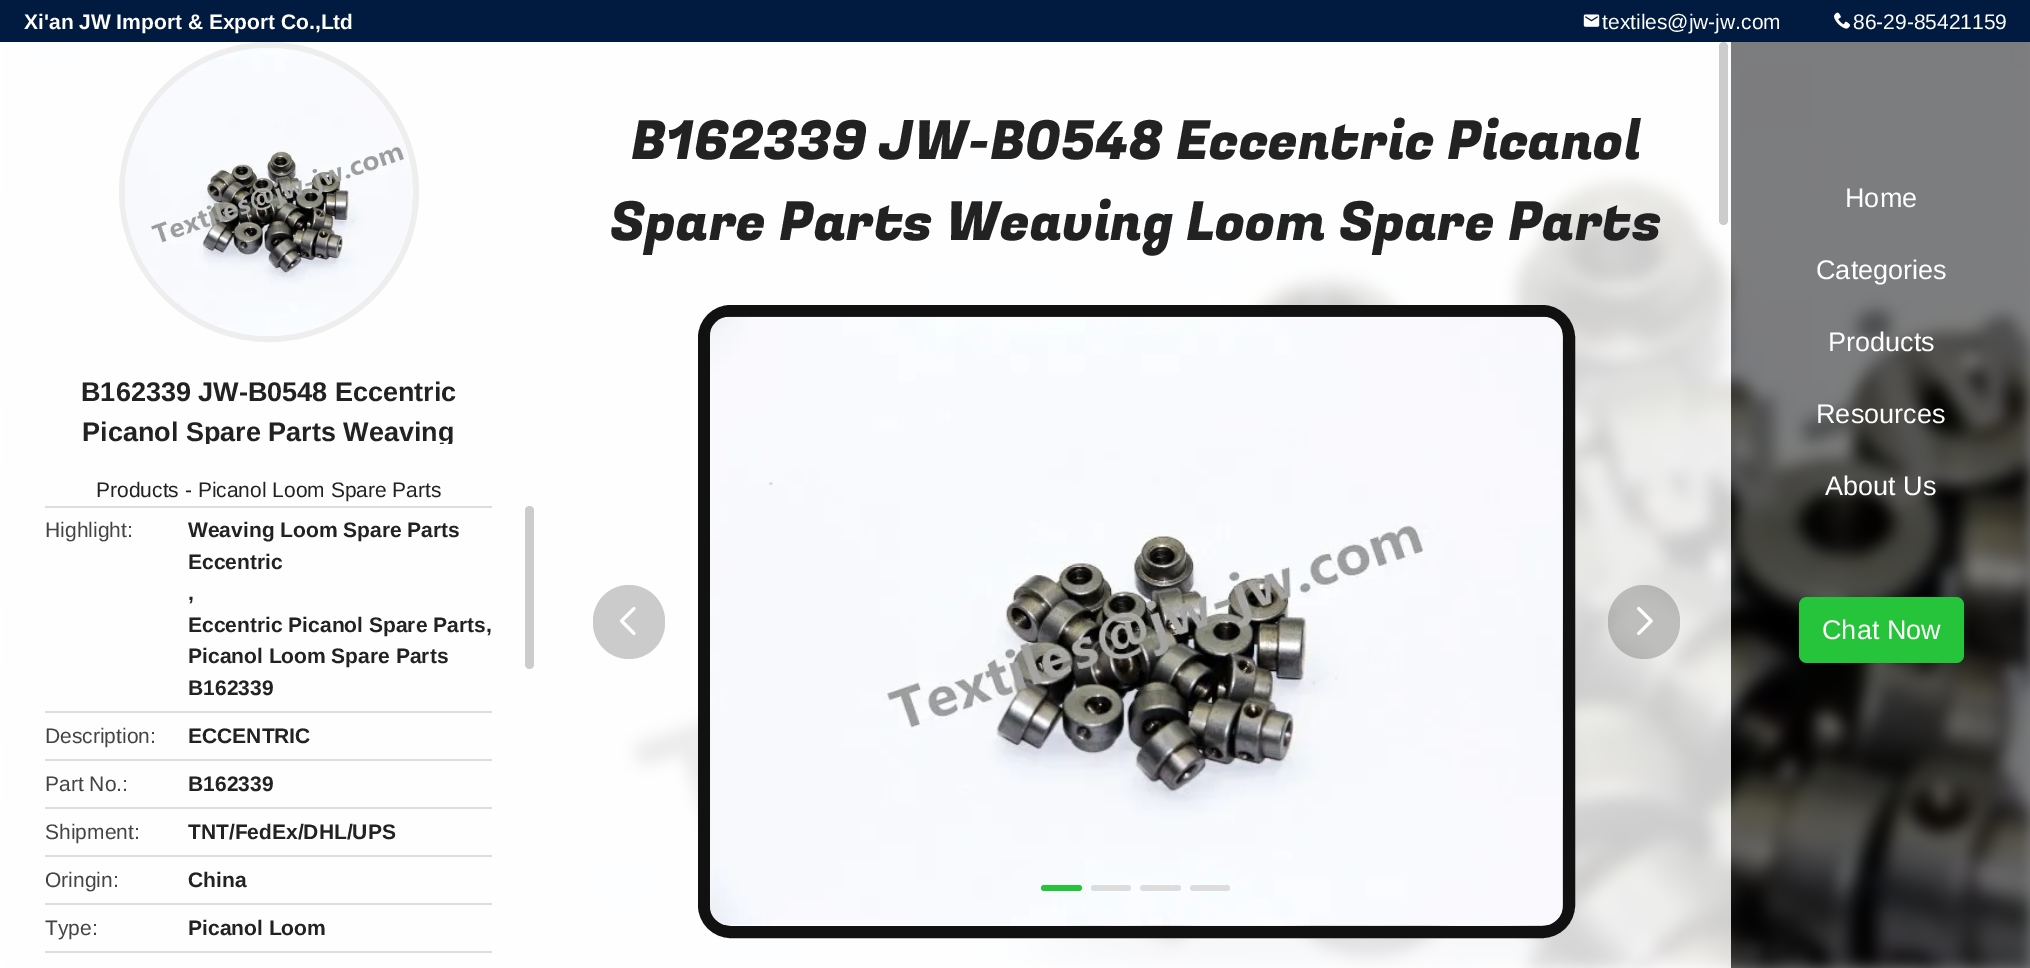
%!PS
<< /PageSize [2030 968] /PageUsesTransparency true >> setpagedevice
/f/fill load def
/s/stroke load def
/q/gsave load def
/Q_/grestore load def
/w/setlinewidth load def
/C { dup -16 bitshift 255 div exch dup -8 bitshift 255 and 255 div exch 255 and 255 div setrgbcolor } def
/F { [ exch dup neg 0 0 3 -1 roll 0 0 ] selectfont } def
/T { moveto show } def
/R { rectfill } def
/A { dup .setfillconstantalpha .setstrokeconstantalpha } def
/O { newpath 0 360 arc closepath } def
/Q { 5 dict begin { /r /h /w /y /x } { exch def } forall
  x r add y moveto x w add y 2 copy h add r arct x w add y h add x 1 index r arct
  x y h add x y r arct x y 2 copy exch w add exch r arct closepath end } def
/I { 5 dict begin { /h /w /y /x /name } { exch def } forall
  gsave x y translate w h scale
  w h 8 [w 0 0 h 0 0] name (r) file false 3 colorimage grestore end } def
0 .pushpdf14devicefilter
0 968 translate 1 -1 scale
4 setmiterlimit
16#FFFFFF C
0 0 2030 968 R
16#001B3F C
0 0 2030 42 R
/LiberationSans-Bold 21 F
16#FFFFFF C
(Xi'an JW Import & Export Co.,Ltd) 24 29 T
(1.rgb) 1583 14 17 13 I
/LiberationSans-Regular 21 F
(textiles@jw-jw.com) 1602 29 T
(2.rgb) 1834 12 16 17 I
(86-29-85421159) 1853 29 T
(3.rgb) 0 42 2030 926 I
0.8 A
0 42 540 926 R
1 A
16#EEEEEE C
6 w
269 192 147 O s
(4.rgb) 125 48 287 288 I
/LiberationSans-Bold 27 F
16#222222 C
(B162339 JW-B0548 Eccentric) 81 401 T
q
44 372 450 72 rectclip
(Picanol Spare Parts Weaving) 82 441 T
Q_
/LiberationSans-Regular 21 F
(Products - Picanol Loom Spare Parts) 96 497 T
16#DDDDDD C
45 506 447 2 R
16#444444 C
(Highlight:) 45 537 T
/LiberationSans-Bold 21 F
16#222222 C
(Weaving Loom Spare Parts) 188 537 T
(Eccentric) 188 569 T
(,) 188 600 T
(Eccentric Picanol Spare Parts,) 188 632 T
(Picanol Loom Spare Parts) 188 663 T
(B162339) 188 695 T
16#DDDDDD C
45 711 447 2 R
/LiberationSans-Regular 21 F
16#444444 C
(Description:) 45 743 T
/LiberationSans-Bold 21 F
16#222222 C
(ECCENTRIC) 188 743 T
16#DDDDDD C
45 759 447 2 R
/LiberationSans-Regular 21 F
16#444444 C
(Part No.:) 45 791 T
/LiberationSans-Bold 21 F
16#222222 C
(B162339) 188 791 T
16#DDDDDD C
45 807 447 2 R
/LiberationSans-Regular 21 F
16#444444 C
(Shipment:) 45 839 T
/LiberationSans-Bold 21 F
16#222222 C
(TNT/FedEx/DHL/UPS) 188 839 T
16#DDDDDD C
45 855 447 2 R
/LiberationSans-Regular 21 F
16#444444 C
(Oringin:) 45 887 T
/LiberationSans-Bold 21 F
16#222222 C
(China) 188 887 T
16#DDDDDD C
45 903 447 2 R
/LiberationSans-Regular 21 F
16#444444 C
(Type:) 45 935 T
/LiberationSans-Bold 21 F
16#222222 C
(Picanol Loom) 188 935 T
16#DDDDDD C
45 951 447 2 R
16#CBCCCC C
525 506 9 163 4.5 Q f
0.8 A
16#FFFFFF C
540 42 1191 926 R
/FugazOne-Regular 54 F
1 A
16#222222 C
(B162339 JW-B0548 Eccentric Picanol) 631 159 T
(Spare Parts Weaving Loom Spare Parts) 610 240 T
16#CCCCCC C
1719 42 9 183 4.5 Q f
16#111111 C
12 w
704 311 865 621 27 Q s
(5.rgb) 710 316 853 609 I
16#CBCBCC C
593 585 72 74 36 Q f
(6.rgb) 619 607 17 28 I
0.2 A
16#000000 C
1608 585 72 74 36 Q f
1 A
(7.rgb) 1637 607 16 28 I
16#26C43A C
1041 885 41 6 3 Q f
16#DDDDDD C
1091 885 40 6 3 Q f
1140 885 41 6 3 Q f
1190 885 40 6 3 Q f
0.5 A
16#000000 C
1731 42 299 926 R
/LiberationSans-Regular 27 F
1 A
16#FFFFFF C
(Home) 1845 207 T
(Categories) 1816 279 T
(Products) 1828 351 T
(Resources) 1816 423 T
(About Us) 1825 495 T
16#26C43A C
1799 597 165 66 8 Q f
16#FFFFFF C
(Chat Now) 1822 639 T
.poppdf14devicefilter showpage
